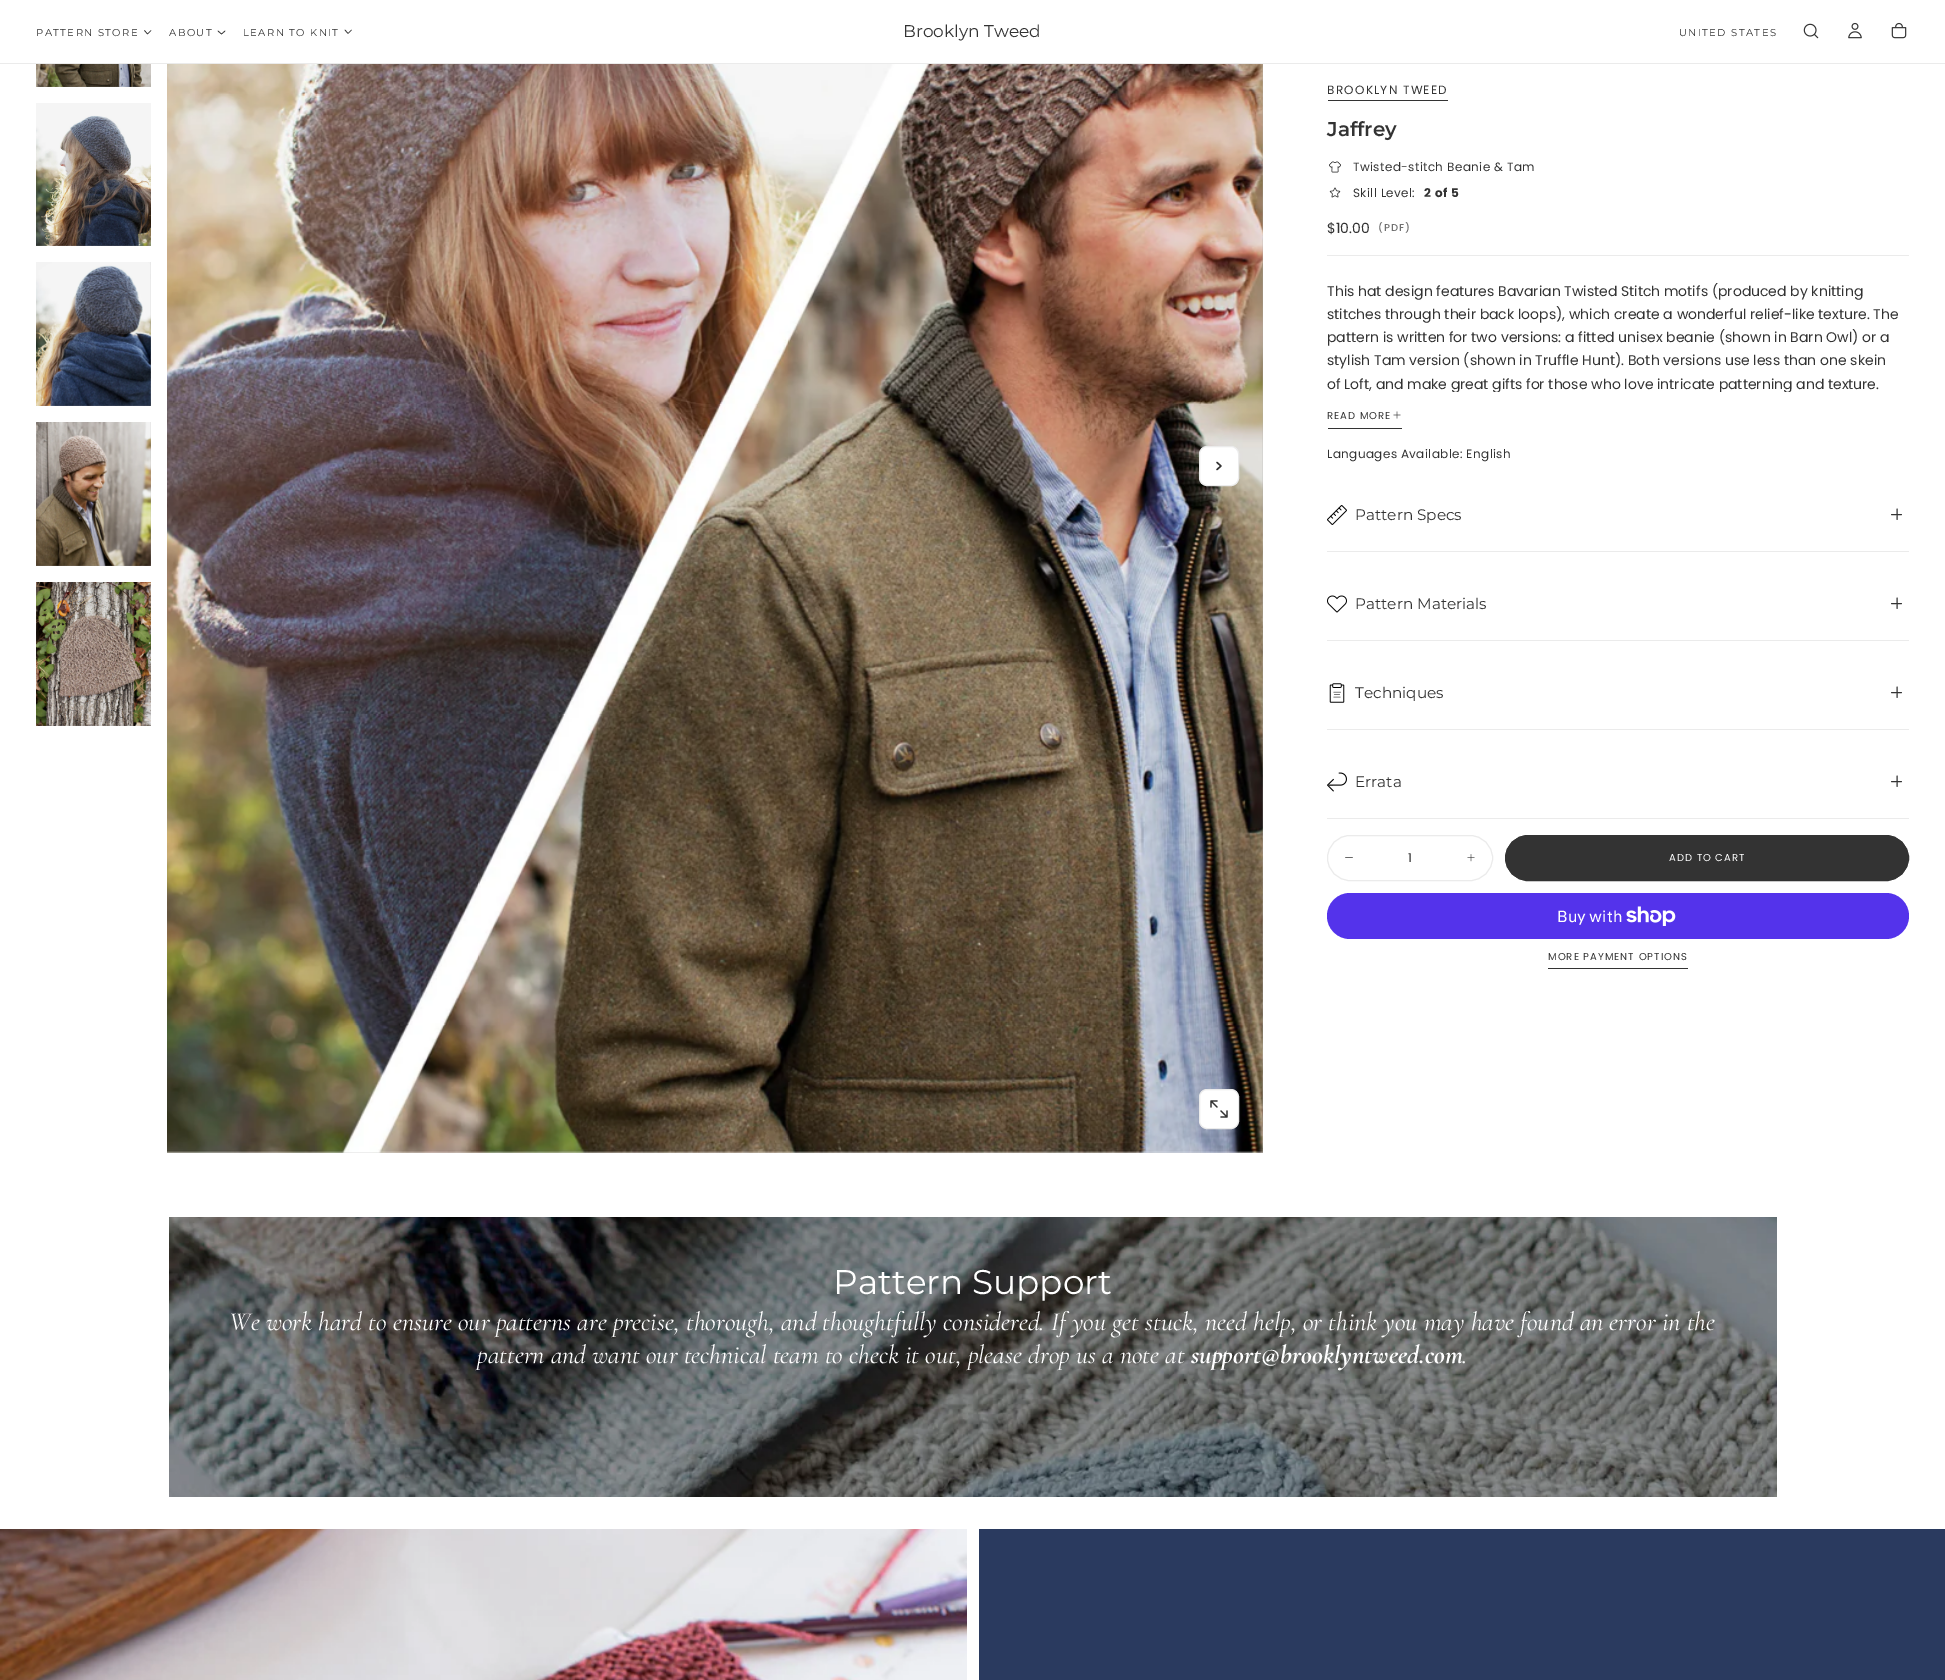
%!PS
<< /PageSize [1945 1680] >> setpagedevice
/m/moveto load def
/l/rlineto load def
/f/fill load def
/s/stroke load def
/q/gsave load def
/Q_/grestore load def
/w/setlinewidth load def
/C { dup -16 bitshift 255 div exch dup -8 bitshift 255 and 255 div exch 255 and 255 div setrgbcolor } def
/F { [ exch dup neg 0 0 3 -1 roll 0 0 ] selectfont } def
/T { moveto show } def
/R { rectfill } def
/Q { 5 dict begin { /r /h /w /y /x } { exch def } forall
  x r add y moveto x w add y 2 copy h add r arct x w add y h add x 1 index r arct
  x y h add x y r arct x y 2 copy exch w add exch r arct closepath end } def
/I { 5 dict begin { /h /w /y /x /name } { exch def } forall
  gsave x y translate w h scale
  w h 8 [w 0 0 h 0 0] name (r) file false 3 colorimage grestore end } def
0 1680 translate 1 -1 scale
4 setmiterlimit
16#FFFFFF C
0 0 1945 1680 R
16#EBEBEB C
0 63 1945 1 R
/Montserrat-Regular 10 F
16#333333 C
36 36 m 1.4 0 (PATTERN STORE) ashow
.6 w
1 setlinecap
1 setlinejoin
151 30.5 m -3.5 3.5 l -3 -3.5 l s
169 36 m 1.4 0 (ABOUT) ashow
225 31 m -3.5 3 l -3.5 -3 l s
243 36 m 1.4 0 (LEARN TO KNIT) ashow
351.5 30 m -3.5 3.5 l -3 -3.5 l s
/Montserrat-Regular 17 F
(Brooklyn Tweed) 903 37 T
/Montserrat-Regular 10 F
1679 36 m 1.4 0 (UNITED STATES) ashow
(1.rgb) 1803 23 16 16 I
(2.rgb) 1848 22 14 17 I
(3.rgb) 1891 22 16 17 I
(4.rgb) 36 64 115 23 I
(5.rgb) 36 103 115 143 I
(6.rgb) 36 262 115 144 I
(7.rgb) 36 422 115 144 I
(8.rgb) 36 582 115 144 I
16#ABABAB C
167 64 1096 1089 R
(9.rgb) 167 64 1096 1089 I
16#FFFFFF C
1199.5 1089.5 39 39 7.5 Q q f Q_
16#EBEBEB C
1 w
0 setlinecap
0 setlinejoin
s
(10.rgb) 1210 1100 18 18 I
16#FFFFFF C
1199.5 446.5 39 39 7.5 Q q f Q_
16#EBEBEB C
s
16#333333 C
1.4 w
1 setlinecap
1 setlinejoin
1217 469.5 m 4 -3.5 l -4 -3.5 l s
/Poppins-Regular 12 F
1327 94 m 1.25 0 (BROOKLYN TWEED) ashow
1328 100 120 1 R
/Montserrat-SemiBold 20 F
(Jaffrey) 1327 136 T
(11.rgb) 1329 161 12 12 I
/Poppins-Regular 12 F
1353 171 m .4 0 (Twisted-stitch Beanie & Tam) ashow
(12.rgb) 1329 187 12 11 I
1353 197 m .4 0 (Skill Level:) ashow
/Poppins-Bold 12 F
1424 197 m .4 0 (2) ashow
1435 197 m .4 0 (of 5) ashow
/Poppins-Regular 14 F
($10.00) 1327 233 T
q
1378 222 33 13 rectclip
/Poppins-Medium 10 F
16#707070 C
1378 231 m 1 0 (\(PDF\)) ashow
Q_
16#EBEBEB C
1327 255 582 1 R
16#333333 C
(This hat design features Bavarian Twisted Stitch motifs \(produced by knitting) 1327 296 T
(stitches through their back loops\), which create a wonderful relief-like texture. The) 1327 319 T
(pattern is written for two versions: a fitted unisex beanie \(shown in Barn Owl\) or a) 1327 342 T
(stylish Tam version \(shown in Truffle Hunt\). Both versions use less than one skein) 1327 365 T
q
1327 280 582 112 rectclip
(of Loft, and make great gifts for those who love intricate patterning and texture.) 1327 389 T
Q_
/Poppins-Regular 10 F
1327 419 m 1 0 (READ MORE) ashow
(13.rgb) 1393 411 8 8 I
1328 428 74 1 R
/Poppins-Regular 12 F
1327 458 m .4 0 (Languages Available: English) ashow
16#EBEBEB C
1327 551 582 1 R
(14.rgb) 1327 505 20 20 I
/Montserrat-Regular 15.25 F
16#333333 C
(Pattern Specs) 1355 520 T
.9 w
0 setlinejoin
1891.5 514.5 m 10 0 l 1897 509 m 0 10.5 l s
16#EBEBEB C
1327 640 582 1 R
(15.rgb) 1327 595 20 18 I
16#333333 C
(Pattern Materials) 1355 609 T
1891.5 603.5 m 10 0 l 1897 598 m 0 10.5 l s
16#EBEBEB C
1327 729 582 1 R
(16.rgb) 1329 683 16 20 I
16#333333 C
(Techniques) 1355 698 T
1891.5 692.5 m 10 0 l 1897 687 m 0 10.5 l s
16#EBEBEB C
1327 818 582 1 R
(17.rgb) 1327 772 20 20 I
16#333333 C
(Errata) 1355 787 T
1891.5 781.5 m 10 0 l 1897 776 m 0 10.5 l s
16#EBEBEB C
1 w
0 setlinecap
1327.5 835.5 165 45 22.5 Q s
16#333333 C
.6 w
1 setlinecap
1345.5 857.5 m 7 0 l s
/Poppins-Regular 12 F
(1) 1408 862 T
(18.rgb) 1467 854 8 8 I
1505.5 835.5 403 45 22.5 Q q f Q_
1 w
0 setlinecap
s
/Poppins-Regular 10 F
16#FFFFFF C
1669 861 m 1 0 (ADD TO CART) ashow
16#5433EB C
1327 893 582 46 23 Q f
/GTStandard-Regular 16 F
16#FFFFFF C
(Buy with) 1557 922 T
(19.rgb) 1626 906 50 20 I
/Poppins-Regular 10 F
16#333333 C
1548 960 m 1 0 (MORE PAYMENT OPTIONS) ashow
1548 968 140 1 R
(20.rgb) 169 1217 1608 280 I
/Montserrat-Regular 34.25 F
16#FFFFFF C
(Pattern Support) 833 1294 T
/Cormorant-Italic 26.25 F
(We work hard to ensure our patterns are precise, thorough, and thoughtfully considered. If you get stuck, need help, or think you may have found an error in the) 229 1330 T
(pattern and want our technical team to check it out, please drop us a note at) 477 1363 T
/Cormorant-BoldItalic 26.25 F
(support@brooklyntweed.com) 1191 1363 T
/Cormorant-Italic 26.25 F
(.) 1462 1363 T
(21.rgb) 0 1529 967 151 I
16#2A3A5F C
979 1529 966 151 R
showpage
